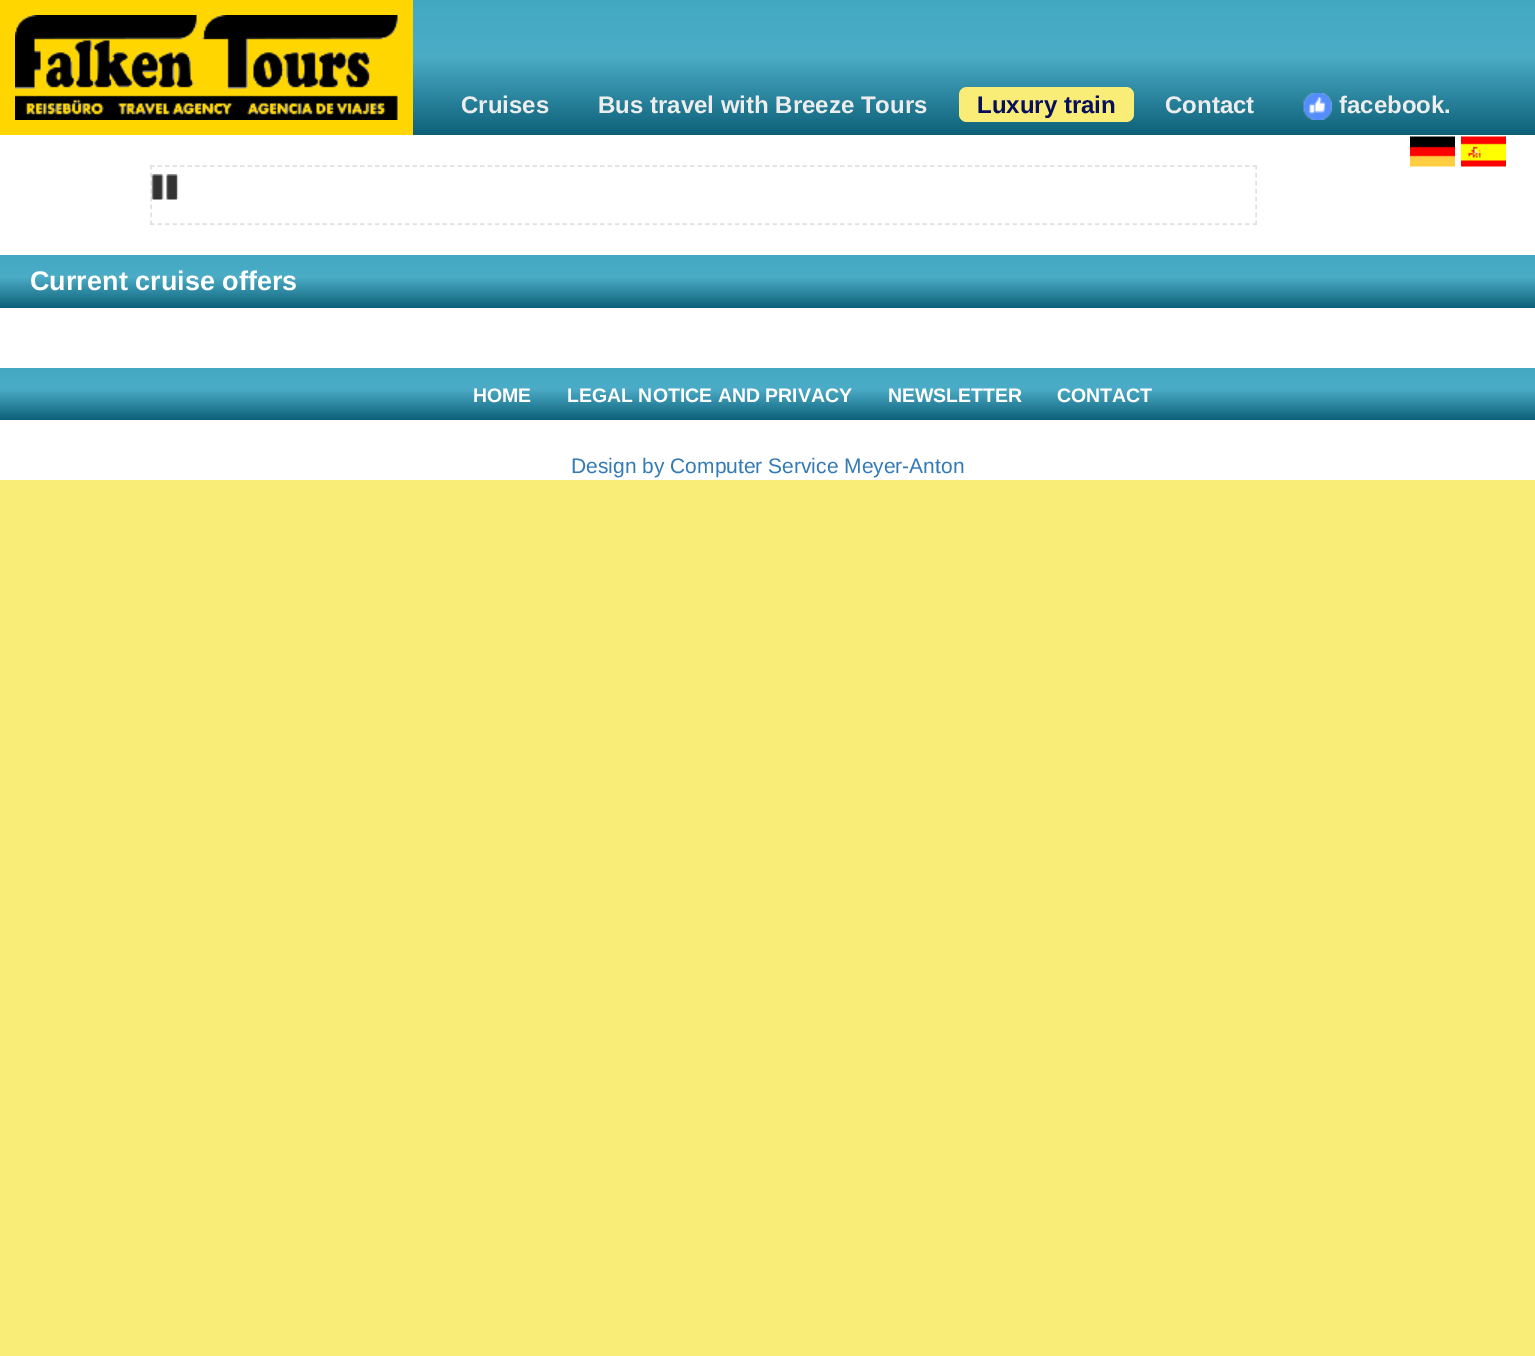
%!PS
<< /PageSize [1535 1356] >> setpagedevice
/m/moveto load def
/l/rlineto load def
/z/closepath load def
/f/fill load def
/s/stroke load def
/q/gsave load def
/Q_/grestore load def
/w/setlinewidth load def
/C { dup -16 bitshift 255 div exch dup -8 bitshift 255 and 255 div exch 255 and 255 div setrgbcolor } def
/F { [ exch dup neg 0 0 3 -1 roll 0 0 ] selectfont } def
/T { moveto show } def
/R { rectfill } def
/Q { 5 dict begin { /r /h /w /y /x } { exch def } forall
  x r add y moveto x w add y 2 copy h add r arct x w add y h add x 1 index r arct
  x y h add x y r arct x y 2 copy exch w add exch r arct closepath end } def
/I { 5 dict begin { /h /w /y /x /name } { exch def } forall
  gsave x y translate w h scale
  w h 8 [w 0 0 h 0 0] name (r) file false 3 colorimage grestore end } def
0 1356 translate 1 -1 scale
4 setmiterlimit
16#F9ED77 C
0 0 1535 1356 R
16#FFFFFF C
0 135 1535 345 R
16#FFD600 C
0 0 413 135 R
(1.rgb) 15 15 383 105 I
q 413 0 m 1122 0 l 0 135 l -1122 0 l z clip newpath
<< /ShadingType 2 /ColorSpace /DeviceRGB /Coords [768 0 768 135] /Extend [true true] /Function << /FunctionType 3 /Domain [0 1] /Functions [<< /FunctionType 2 /Domain [0 1] /C0 [.259 .659 .761] /C1 [.298 .675 .78] /N 1 >> << /FunctionType 2 /Domain [0 1] /C0 [.298 .675 .78] /C1 [.051 .38 .471] /N 1 >>] /Bounds [.41] /Encode [0 1 0 1] >> >> shfill Q_
(2.rgb) 1410 136 45 31 I
(3.rgb) 1461 136 45 31 I
/LiberationSans-Bold 24 F
16#EDEDED C
(Cruises) 461 113 T
(Bus travel with Breeze Tours) 598 113 T
16#F9ED77 C
959 87 175 35 8 Q f
16#070E5C C
(Luxury train) 977 113 T
16#EDEDED C
(Contact) 1165 113 T
(4.rgb) 1303 93 29 27 I
(facebook.) 1339 113 T
16#E1E1E1 C
1.5 w
[4.5 3] 0 setdash
150 166 m 1107 0 l s
[4.5 3.44] 0 setdash
1256 165 m 0 60 l s
[4.5 3] 0 setdash
150 224 m 1107 0 l s
[4.5 3.44] 0 setdash
151 165 m 0 60 l s
(5.rgb) 151 174 28 26 I
q 0 255 m 1535 0 l 0 53 l -1535 0 l z clip newpath
<< /ShadingType 2 /ColorSpace /DeviceRGB /Coords [768 255 768 308] /Extend [true true] /Function << /FunctionType 3 /Domain [0 1] /Functions [<< /FunctionType 2 /Domain [0 1] /C0 [.259 .659 .761] /C1 [.298 .675 .78] /N 1 >> << /FunctionType 2 /Domain [0 1] /C0 [.298 .675 .78] /C1 [.051 .38 .471] /N 1 >>] /Bounds [.41] /Encode [0 1 0 1] >> >> shfill Q_
/LiberationSans-Bold 27 F
16#FFFFFF C
(Current cruise offers) 30 290 T
q 0 368 m 1535 0 l 0 52 l -1535 0 l z clip newpath
<< /ShadingType 2 /ColorSpace /DeviceRGB /Coords [768 367 768 420] /Extend [true true] /Function << /FunctionType 3 /Domain [0 1] /Functions [<< /FunctionType 2 /Domain [0 1] /C0 [.259 .659 .761] /C1 [.298 .675 .78] /N 1 >> << /FunctionType 2 /Domain [0 1] /C0 [.298 .675 .78] /C1 [.051 .38 .471] /N 1 >>] /Bounds [.41] /Encode [0 1 0 1] >> >> shfill Q_
/LiberationSans-Bold 19.5 F
(HOME) 473 402 T
(LEGAL NOTICE AND PRIVACY) 567 402 T
(NEWSLETTER) 888 402 T
(CONTACT) 1057 402 T
/LiberationSans-Regular 21 F
16#337AB7 C
(Design by Computer Service Meyer-Anton) 571 473 T
showpage
